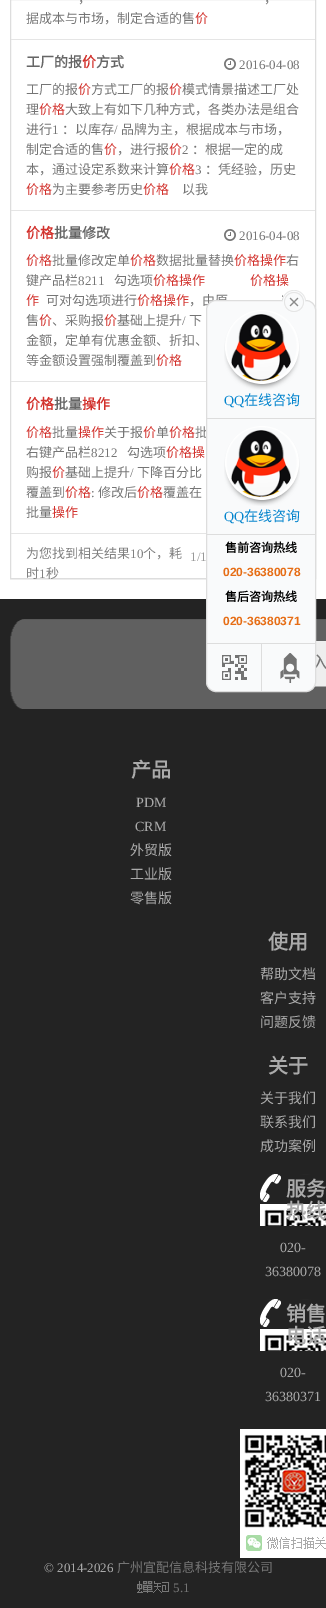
%!PS
<< /PageSize [326 1608] /PageUsesTransparency true >> setpagedevice
/f/fill load def
/s/stroke load def
/q/gsave load def
/Q_/grestore load def
/C { dup -16 bitshift 255 div exch dup -8 bitshift 255 and 255 div exch 255 and 255 div setrgbcolor } def
/F { [ exch dup neg 0 0 3 -1 roll 0 0 ] selectfont } def
/T { moveto show } def
/R { rectfill } def
/A { dup .setfillconstantalpha .setstrokeconstantalpha } def
/Q { 5 dict begin { /r /h /w /y /x } { exch def } forall
  x r add y moveto x w add y 2 copy h add r arct x w add y h add x 1 index r arct
  x y h add x y r arct x y 2 copy exch w add exch r arct closepath end } def
/S { 12 dict begin { /a /b /q /h /w /y /x } { exch def } forall gsave /was 0 def
  9 -2 -9 { dup b mul 4 div /e exch def 1 sub .425 mul 2.718 exch exp 1 add a .99 .min exch div /now exch def
    1 1 now sub 1 was sub div sub A /was now def
    w h .min e 2 mul add 0 gt { x e sub y e sub w e 2 mul add h e 2 mul add
      q e add b .6 mul add w h .min 2 div e add .min 0 .max Q fill } if } for grestore end } def
/I { 5 dict begin { /h /w /y /x /name } { exch def } forall
  gsave x y translate w h scale
  w h 8 [w 0 0 h 0 0] name (r) file false 3 colorimage grestore end } def
0 .pushpdf14devicefilter
0 1608 translate 1 -1 scale
4 setmiterlimit
16#FFFFFF C
0 0 326 1608 R
q
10 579 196 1 rectclip
16#000000 C
10 -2 306 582 0 .5 .05 S
Q_
16#DDDDDD C
10.5 -.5 305 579 rectstroke
16#E5E5E5 C
11 39 304 1 R
/NotoSansCJKSC-Regular 13 F
16#757575 C
(，) 78 3 T
(，) 264 3 T
(据成本与市场，制定合适的售) 26 23 T
16#D2322D C
(价) 195 23 T
16#E5E5E5 C
11 210 304 1 R
/NotoSansCJKSC-Bold 14 F
16#666666 C
(工厂的报) 26 67 T
16#D2322D C
(价) 82 67 T
16#666666 C
(方式) 96 67 T
(1.rgb) 224 58 12 12 I
/LiberationSerif-Regular 13 F
16#757575 C
(2016-04-08) 239 69 T
/NotoSansCJKSC-Regular 13 F
(工厂的报) 26 94 T
16#D2322D C
(价) 78 94 T
16#757575 C
(方式工厂的报) 91 94 T
16#D2322D C
(价) 169 94 T
16#757575 C
(模式情景描述工厂处) 182 94 T
(理) 26 114 T
16#D2322D C
(价格) 39 114 T
16#757575 C
(大致上有如下几种方式，各类办法是组合) 65 114 T
(进行) 26 134 T
/LiberationSerif-Regular 13 F
(1) 52 134 T
/NotoSansCJKSC-Regular 13 F
(：以库存) 62 134 T
/LiberationSerif-Regular 13 F
(/) 114 134 T
/NotoSansCJKSC-Regular 13 F
(品牌为主，根据成本与市场，) 121 134 T
(制定合适的售) 26 154 T
16#D2322D C
(价) 104 154 T
16#757575 C
(，进行报) 117 154 T
16#D2322D C
(价) 169 154 T
/LiberationSerif-Regular 13 F
16#757575 C
(2) 182 154 T
/NotoSansCJKSC-Regular 13 F
(：根据一定的成) 192 154 T
(本，通过设定系数来计算) 26 174 T
16#D2322D C
(价格) 169 174 T
/LiberationSerif-Regular 13 F
16#757575 C
(3) 195 174 T
/NotoSansCJKSC-Regular 13 F
(：凭经验，历史) 205 174 T
16#D2322D C
(价格) 26 194 T
16#757575 C
(为主要参考历史) 52 194 T
16#D2322D C
(价格) 143 194 T
16#757575 C
(以我) 182 194 T
16#E5E5E5 C
11 381 195 1 R
/NotoSansCJKSC-Bold 14 F
16#D2322D C
(价格) 26 238 T
16#666666 C
(批量修改) 54 238 T
(1.rgb) 224 229 12 12 I
/LiberationSerif-Regular 13 F
16#757575 C
(2016-04-08) 239 240 T
/NotoSansCJKSC-Regular 13 F
16#D2322D C
(价格) 26 265 T
16#757575 C
(批量修改定单) 52 265 T
16#D2322D C
(价格) 130 265 T
16#757575 C
(数据批量替换) 156 265 T
16#D2322D C
(价格操作) 234 265 T
16#757575 C
(右) 286 265 T
(键产品栏) 26 285 T
/LiberationSerif-Regular 13 F
(8211) 78 285 T
/NotoSansCJKSC-Regular 13 F
(勾选项) 114 285 T
16#D2322D C
(价格操作) 153 285 T
(价格操) 250 285 T
(作) 26 305 T
16#757575 C
(可对勾选项进行) 46 305 T
16#D2322D C
(价格操作) 137 305 T
16#757575 C
(，由原) 189 305 T
(售) 26 325 T
16#D2322D C
(价) 39 325 T
16#757575 C
(、采购报) 52 325 T
16#D2322D C
(价) 104 325 T
16#757575 C
(基础上提升) 117 325 T
/LiberationSerif-Regular 13 F
(/) 182 325 T
/NotoSansCJKSC-Regular 13 F
(下) 189 325 T
(金额，定单有优惠金额、折扣、) 26 345 T
(等金额设置强制覆盖到) 26 365 T
16#D2322D C
(价格) 156 365 T
16#E5E5E5 C
11 533 195 1 R
/NotoSansCJKSC-Bold 14 F
16#D2322D C
(价格) 26 409 T
16#666666 C
(批量) 54 409 T
16#D2322D C
(操作) 82 409 T
/NotoSansCJKSC-Regular 13 F
(价格) 26 437 T
16#757575 C
(批量) 52 437 T
16#D2322D C
(操作) 78 437 T
16#757575 C
(关于报) 104 437 T
16#D2322D C
(价) 143 437 T
16#757575 C
(单) 156 437 T
16#D2322D C
(价格) 169 437 T
16#757575 C
(批) 195 437 T
(右键产品栏) 26 457 T
/LiberationSerif-Regular 13 F
(8212) 91 457 T
/NotoSansCJKSC-Regular 13 F
(勾选项) 127 457 T
16#D2322D C
(价格操) 166 457 T
16#757575 C
(购报) 26 477 T
16#D2322D C
(价) 52 477 T
16#757575 C
(基础上提升) 65 477 T
/LiberationSerif-Regular 13 F
(/) 130 477 T
/NotoSansCJKSC-Regular 13 F
(下降百分比) 137 477 T
(覆盖到) 26 497 T
16#D2322D C
(价格) 65 497 T
/LiberationSerif-Regular 13 F
16#757575 C
(:) 91 497 T
/NotoSansCJKSC-Regular 13 F
(修改后) 98 497 T
16#D2322D C
(价格) 137 497 T
16#757575 C
(覆盖在) 163 497 T
(批量) 26 517 T
16#D2322D C
(操作) 52 517 T
16#808080 C
(为您找到相关结果) 26 558 T
/LiberationSerif-Regular 13 F
(10) 130 558 T
/NotoSansCJKSC-Regular 13 F
(个，耗) 143 558 T
/LiberationSerif-Regular 13 F
16#999999 C
(1/1) 190 561 T
/NotoSansCJKSC-Regular 13 F
16#808080 C
(时) 26 578 T
/LiberationSerif-Regular 13 F
(1) 39 578 T
/NotoSansCJKSC-Regular 13 F
(秒) 46 578 T
16#232323 C
0 599 326 1009 R
(7.rgb) 10 619 316 90 I
/NotoSansCJKSC-Regular 18 F
16#757575 C
(入) 311 669 T
16#F9FAFB C
206.5 300.5 109 391 9.5 Q q f Q_
16#DDDDDD C
s
(4.rgb) 231 314 60 67 I
(3.rgb) 224 310 76 80 I
(2.rgb) 282 290 24 22 I
207 418 109 1 R
/LiberationSerif-Regular 14 F
16#0484CD C
(QQ) 224 405 T
/NotoSansCJKSC-Regular 14 F
(在线咨询) 244 405 T
(4.rgb) 231 430 60 67 I
(3.rgb) 224 426 76 80 I
16#DDDDDD C
207 534 109 1 R
/LiberationSerif-Regular 14 F
16#0484CD C
(QQ) 224 521 T
/NotoSansCJKSC-Regular 14 F
(在线咨询) 244 521 T
16#DDDDDD C
207 643 109 1 R
/NotoSansCJKSC-Bold 12 F
16#000000 C
(售前咨询热线) 225 552 T
/LiberationSans-Bold 12 F
16#E66D15 C
(020-36380078) 223 576 T
/NotoSansCJKSC-Bold 12 F
16#000000 C
(售后咨询热线) 225 601 T
/LiberationSans-Bold 12 F
16#E66D15 C
(020-36380371) 223 625 T
(5.rgb) 222 655 25 25 I
16#DDDDDD C
261 644 1 47 R
(6.rgb) 280 653 20 30 I
/NotoSansCJKSC-Bold 20 F
16#AAAAAA C
(产品) 131 777 T
/LiberationSerif-Regular 14 F
(PDM) 136 807 T
(CRM) 135 831 T
/NotoSansCJKSC-Regular 14 F
(外贸版) 130 855 T
(工业版) 130 879 T
(零售版) 130 903 T
/NotoSansCJKSC-Bold 20 F
(使用) 268 949 T
/NotoSansCJKSC-Regular 14 F
(帮助文档) 260 979 T
(客户支持) 260 1003 T
(问题反馈) 260 1027 T
/NotoSansCJKSC-Bold 20 F
(关于) 268 1073 T
/NotoSansCJKSC-Regular 14 F
(关于我们) 260 1103 T
(联系我们) 260 1127 T
(成功案例) 260 1151 T
(8.rgb) 260 1174 66 52 I
/NotoSansCJKSC-Bold 20 F
(服务) 286 1196 T
(热线) 286 1218 T
/LiberationSerif-Regular 14 F
(020-) 280 1252 T
(36380078) 265 1276 T
(8.rgb) 260 1299 66 52 I
/NotoSansCJKSC-Bold 20 F
(销售) 286 1321 T
(电话) 286 1343 T
/LiberationSerif-Regular 14 F
(020-) 280 1377 T
(36380371) 265 1401 T
(9.rgb) 240 1429 86 129 I
/LiberationSerif-Regular 13 F
(© 2014-2026) 44 1572 T
/NotoSansCJKSC-Regular 13 F
16#757575 C
(广州宜配信息科技有限公司) 117 1572 T
16#777777 C
137.5 1584.5 4 4 rectstroke
139 1581 1 10 R
141 1591 1 2 R
138 1591 1 2 R
143 1591 10 1 R
147 1585 1 8 R
143.5 1585.5 8 4 rectstroke
143.5 1581.5 3 2 rectstroke
144 1587 8 1 R
148.5 1581.5 3 2 rectstroke
154 1581 1 2 R
154 1583 7 1 R
154 1586 7 1 R
162 1582 7 1 R
168 1582 1 10 R
162 1591 7 1 R
162 1585 4 1 R
165 1585 1 5 R
162 1585 1 6 R
137 1592 6 1 R
157 1583 1 6 R
158 1589 1 1 R
156 1589 1 1 R
159 1590 1 1 R
155 1590 1 1 R
160 1591 1 1 R
154 1591 1 1 R
161 1592 1 1 R
153 1592 1 1 R
/LiberationSerif-Regular 13 F
16#757575 C
(5.1) 173 1592 T
.poppdf14devicefilter showpage
